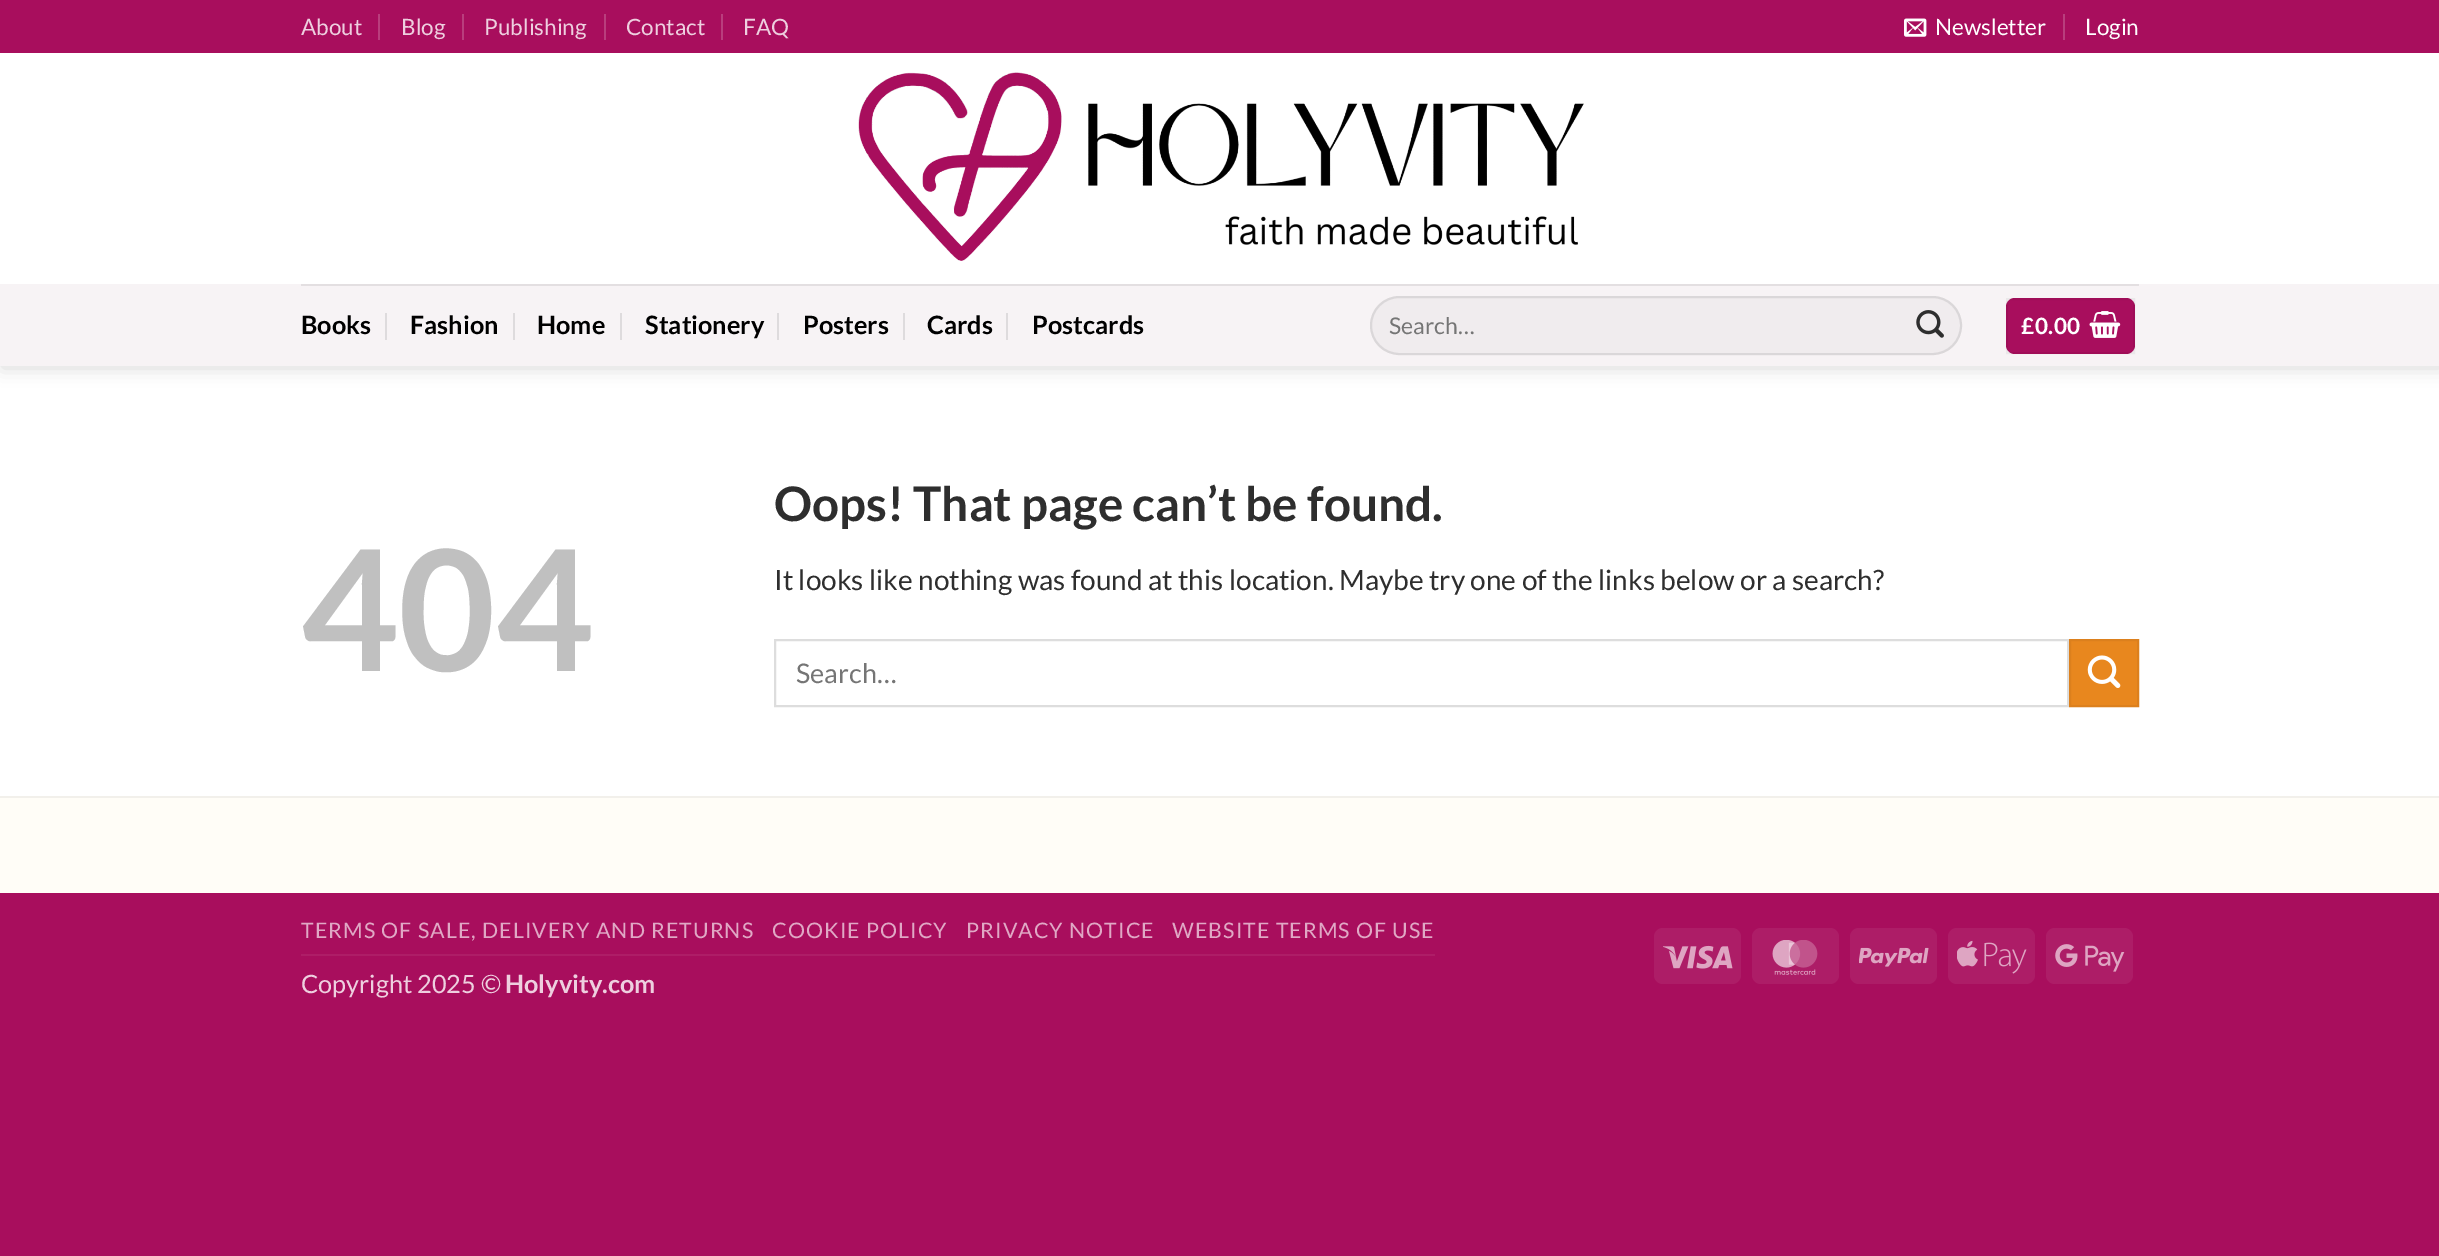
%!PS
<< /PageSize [2439 1256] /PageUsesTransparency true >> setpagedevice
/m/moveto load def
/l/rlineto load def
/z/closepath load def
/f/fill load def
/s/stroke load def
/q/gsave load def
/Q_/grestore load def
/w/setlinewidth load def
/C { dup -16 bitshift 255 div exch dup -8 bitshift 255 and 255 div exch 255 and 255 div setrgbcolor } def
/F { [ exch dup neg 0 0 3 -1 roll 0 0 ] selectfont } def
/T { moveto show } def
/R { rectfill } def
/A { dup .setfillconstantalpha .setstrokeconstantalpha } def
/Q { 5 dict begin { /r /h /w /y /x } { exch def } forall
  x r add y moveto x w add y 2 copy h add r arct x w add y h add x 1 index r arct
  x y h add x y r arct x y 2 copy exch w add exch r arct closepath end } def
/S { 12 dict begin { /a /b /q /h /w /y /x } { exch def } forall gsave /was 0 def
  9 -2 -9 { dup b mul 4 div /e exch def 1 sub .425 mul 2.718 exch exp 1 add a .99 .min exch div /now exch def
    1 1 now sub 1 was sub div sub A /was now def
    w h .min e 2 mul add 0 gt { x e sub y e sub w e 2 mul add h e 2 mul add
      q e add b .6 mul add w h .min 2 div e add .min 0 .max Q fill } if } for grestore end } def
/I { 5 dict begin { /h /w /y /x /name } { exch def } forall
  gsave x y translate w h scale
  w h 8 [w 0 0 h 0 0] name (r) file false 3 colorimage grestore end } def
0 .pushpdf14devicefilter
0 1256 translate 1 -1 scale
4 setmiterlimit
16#A80E5D C
0 0 2439 1256 R
16#FFFFFF C
0 366 2439 430 R
16#000000 C
2 2 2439 366 0 9 .15 S
16#A80E5D C
0 0 2439 53 R
/Lato-Regular 22.5 F
16#EECFDF C
(About) 301 35 T
16#B93E7D C
378 14 2 26 R
16#EECFDF C
(Blog) 401 35 T
16#B93E7D C
462 14 2 26 R
16#EECFDF C
(Publishing) 484 35 T
16#B93E7D C
604 14 2 26 R
16#EECFDF C
(Contact) 626 35 T
16#B93E7D C
721 14 2 26 R
16#EECFDF C
(FAQ) 743 35 T
(1.rgb) 1904 18 23 19 I
16#FFFFFF C
(Newsletter) 1935 35 T
16#B93E7D C
2063 14 2 26 R
16#FFFFFF C
(Login) 2085 35 T
0 53 2439 231 R
(2.rgb) 858 72 726 189 I
16#F7F3F5 C
0 284 2439 82 R
16#E3DFE1 C
301 284 1838 2 R
/Lato-Bold 25.25 F
16#000000 C
(Books) 301 334 T
16#DEDBDD C
385 313 2 27 R
16#000000 C
(Fashion) 410 334 T
16#DEDBDD C
513 313 2 27 R
16#000000 C
(Home) 537 334 T
16#DEDBDD C
620 313 2 27 R
16#000000 C
(Stationery) 645 334 T
16#DEDBDD C
777 313 2 27 R
16#000000 C
(Posters) 803 334 T
16#DEDBDD C
903 313 2 27 R
16#000000 C
(Cards) 927 334 T
16#DEDBDD C
1006 313 2 27 R
16#000000 C
(Postcards) 1032 334 T
16#F0ECEE C
1370 296 592 59 29.5 Q f
0.09 A
16#000000 C
2 w
1371 297 590 57 28.5 Q s
/Lato-Regular 23 F
1 A
16#757575 C
(Search…) 1389 334 T
(3.rgb) 1916 310 28 28 I
16#A80E5D C
2006 298 129 56 9 Q f
0.05 A
16#000000 C
2007 299 127 54 rectstroke
/Lato-Bold 22.5 F
1 A
16#FFFFFF C
2021 334 m .5 0 (£0.00) ashow
(4.rgb) 2089 311 32 27 I
/Lato-Bold 168 F
16#C0C0C0 C
(404) 301 671 T
/Lato-Bold 47.6 F
16#2E2E2E C
(Oops! That page can’t be found.) 774 521 T
/Lato-Regular 28 F
(It looks like nothing was found at this location. Maybe try one of the links below or a search?) 774 590 T
16#DDDDDD C
775 640 1293 66 rectstroke
/Lato-Regular 27 F
16#757575 C
(Search…) 796 683 T
16#E8871E C
2070 640 m 68 0 l 0 66 l -68 0 l z q f Q_
16#DC801D C
s
(5.rgb) 2087 655 34 33 I
16#FFFDF7 C
0 798 2439 95 R
16#F2F0EB C
0 796 2439 2 R
16#AE1D67 C
301 954 1134 2 R
/Lato-Regular 21.4 F
16#E0A8C5 C
301 938 m 1.05 0 (TERMS OF SALE, DELIVERY AND RETURNS) ashow
772 938 m 1.05 0 (COOKIE POLICY) ashow
966 938 m 1.05 0 (PRIVACY NOTICE) ashow
1172 938 m 1.05 0 (WEBSITE TERMS OF USE) ashow
/Lato-Regular 25.25 F
16#EECFDF C
(Copyright 2025 ©) 301 993 T
/Lato-Bold 25.25 F
(Holyvity.com) 505 993 T
16#AD1D67 C
1654 928 87 56 9 Q f
(6.rgb) 1663 945 70 24 I
1752 928 87 56 9 Q f
(7.rgb) 1772 940 46 35 I
1850 928 87 56 9 Q f
(8.rgb) 1859 947 70 20 I
1948 928 87 56 9 Q f
(9.rgb) 1957 940 70 34 I
2046 928 87 56 9 Q f
(10.rgb) 2055 944 70 28 I
.poppdf14devicefilter showpage
